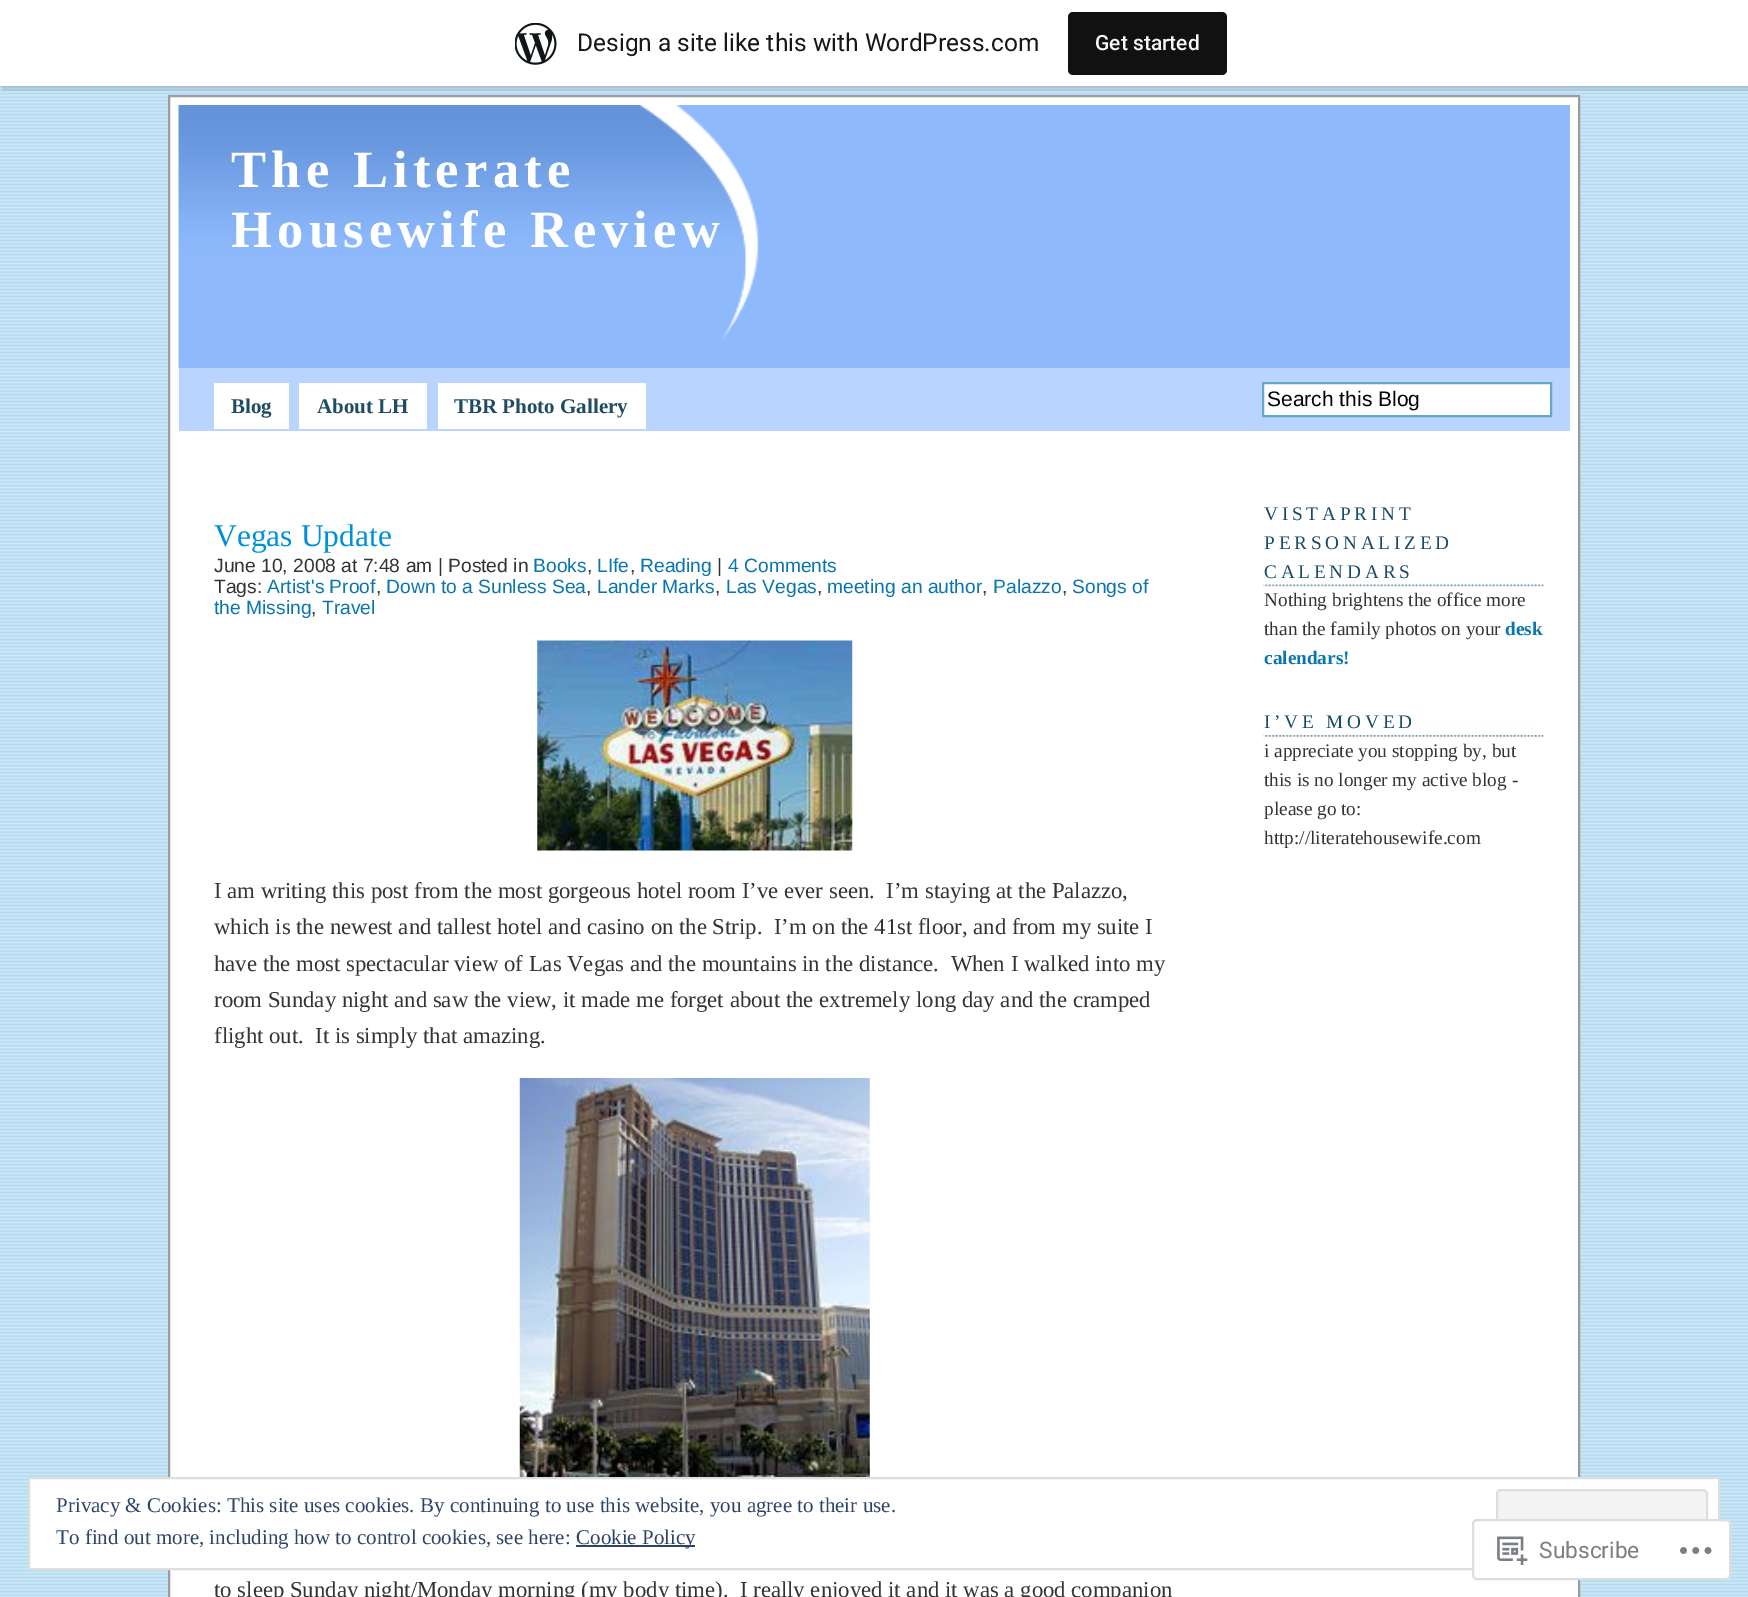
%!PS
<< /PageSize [1748 1597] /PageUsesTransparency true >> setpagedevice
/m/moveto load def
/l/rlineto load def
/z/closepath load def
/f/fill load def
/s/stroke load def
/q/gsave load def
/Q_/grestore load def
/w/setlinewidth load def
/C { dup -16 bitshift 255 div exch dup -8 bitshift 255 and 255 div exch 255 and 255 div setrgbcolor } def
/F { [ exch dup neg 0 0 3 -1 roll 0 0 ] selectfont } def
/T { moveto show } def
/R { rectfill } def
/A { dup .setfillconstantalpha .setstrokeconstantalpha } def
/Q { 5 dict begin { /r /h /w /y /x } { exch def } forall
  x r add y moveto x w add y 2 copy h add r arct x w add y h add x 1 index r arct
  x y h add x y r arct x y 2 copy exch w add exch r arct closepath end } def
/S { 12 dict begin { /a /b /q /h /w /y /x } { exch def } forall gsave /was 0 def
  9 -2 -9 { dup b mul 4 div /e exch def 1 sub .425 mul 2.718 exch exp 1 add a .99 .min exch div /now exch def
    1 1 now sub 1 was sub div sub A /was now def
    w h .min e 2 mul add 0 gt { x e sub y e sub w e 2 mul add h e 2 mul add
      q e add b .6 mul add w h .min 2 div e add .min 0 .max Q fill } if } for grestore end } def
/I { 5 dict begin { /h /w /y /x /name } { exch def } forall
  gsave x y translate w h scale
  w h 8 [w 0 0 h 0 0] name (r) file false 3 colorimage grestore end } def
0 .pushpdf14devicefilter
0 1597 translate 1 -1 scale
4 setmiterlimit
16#FFFFFF C
0 0 1748 1597 R
(1.rgb) 0 86 1748 1511 I
16#000000 C
0 2 1748 86 0 2 .05 S
0.08 A
2 86 m 0 5 l 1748 0 l 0 -86 l -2 0 l 0 81 l z f
1 A
16#FFFFFF C
0 0 1748 86 R
(2.rgb) 515 23 42 42 I
/Roboto-Regular 24.5 F
16#171717 C
(Design a site like this with WordPress.com) 577 51 T
16#111111 C
1068 12 159 63 5 Q f
/Roboto-Medium 21 F
16#F6F7F7 C
(Get started) 1095 50 T
16#FFFFFF C
169 96 m 1410 0 l 0 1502 l -1410 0 l z q f Q_
16#9C9C9C C
2 w
s
16#8EBAFD C
179 105 1391 263 R
(3.rgb) 178 105 581 263 I
/LiberationSerif-Bold 52.5 F
16#FFFFFF C
231 187 m 5.25 0 (The Literate) ashow
231 247 m 5.25 0 (Housewife Review) ashow
16#B8D4FF C
179 368 1391 63 R
16#FFFFFF C
214 383 75 46 R
/LiberationSerif-Bold 21 F
16#1E4C62 C
(Blog) 231 413 T
16#FFFFFF C
299 383 128 46 R
16#1E4C62 C
(About LH) 317 413 T
16#FFFFFF C
438 383 208 46 R
16#1E4C62 C
(TBR Photo Gallery) 454 413 T
16#FFFFFF C
1263 383 m 288 0 l 0 33 l -288 0 l z q f Q_
16#66A8CC C
s
/LiberationSans-Regular 21 F
16#000000 C
(Search this Blog) 1267 406 T
/LiberationSerif-Regular 31.5 F
16#0090DA C
(Vegas Update) 214 546 T
/LiberationSans-Regular 19.25 F
16#333333 C
(June 10, 2008 at 7:48 am | Posted in) 214 572 T
16#0B76AE C
(Books) 533 572 T
16#333333 C
(,) 587 572 T
16#0B76AE C
(LIfe) 597 572 T
16#333333 C
(,) 630 572 T
16#0B76AE C
(Reading) 640 572 T
16#333333 C
(|) 717 572 T
16#0B76AE C
(4 Comments) 728 572 T
16#333333 C
(Tags:) 214 593 T
16#0B76AE C
(Artist's Proof) 267 593 T
16#333333 C
(,) 376 593 T
16#0B76AE C
(Down to a Sunless Sea) 386 593 T
16#333333 C
(,) 586 593 T
16#0B76AE C
(Lander Marks) 597 593 T
16#333333 C
(,) 715 593 T
16#0B76AE C
(Las Vegas) 726 593 T
16#333333 C
(,) 817 593 T
16#0B76AE C
(meeting an author) 827 593 T
16#333333 C
(,) 982 593 T
16#0B76AE C
(Palazzo) 993 593 T
16#333333 C
(,) 1062 593 T
16#0B76AE C
(Songs of) 1072 593 T
(the Missing) 214 614 T
16#333333 C
(,) 311 614 T
16#0B76AE C
(Travel) 322 614 T
(4.rgb) 537 640 316 211 I
/LiberationSerif-Regular 22.75 F
16#333333 C
(I am writing this post from the most gorgeous hotel room I’ve ever seen.  I’m staying at the Palazzo,) 214 898 T
(which is the newest and tallest hotel and casino on the Strip.  I’m on the 41st floor, and from my suite I) 214 934 T
(have the most spectacular view of Las Vegas and the mountains in the distance.  When I walked into my) 214 971 T
(room Sunday night and saw the view, it made me forget about the extremely long day and the cramped) 214 1007 T
(flight out.  It is simply that amazing.) 214 1043 T
(5.rgb) 519 1078 351 399 I
(to sleep Sunday night/Monday morning \(my body time\).  I really enjoyed it and it was a good companion) 214 1597 T
(6.rgb) 1263 584 281 3 I
/LiberationSerif-Regular 19.25 F
16#174B65 C
1264 520 m 3.8 0 (VISTAPRINT) ashow
1264 549 m 3.8 0 (PERSONALIZED) ashow
1264 578 m 3.8 0 (CALENDARS) ashow
16#333333 C
(Nothing brightens the office more) 1264 606 T
(than the family photos on your) 1264 635 T
/LiberationSerif-Bold 19.25 F
16#0B76AE C
(desk) 1505 635 T
(calendars!) 1264 664 T
(7.rgb) 1263 735 281 2 I
/LiberationSerif-Regular 19.25 F
16#174B65 C
1264 728 m 3.8 0 (I’VE MOVED) ashow
16#333333 C
(i appreciate you stopping by, but) 1264 757 T
(this is no longer my active blog -) 1264 786 T
(please go to:) 1264 815 T
(http://literatehousewife.com) 1264 844 T
16#FFFFFF C
29 1478 m 1690 0 l 0 91 l -1690 0 l z q f Q_
16#DEDEDE C
s
/LiberationSerif-Regular 21 F
16#2E4467 C
(Privacy & Cookies: This site uses cookies. By continuing to use this website, you agree to their use.) 56 1512 T
16#F3F3F3 C
1497 1490 210 67 4 Q q f Q_
16#DEDEDE C
s
16#2E4467 C
(To find out more, including how to control cookies, see here:) 56 1544 T
576 1545 119 2 R
(Cookie Policy) 576 1544 T
0.98 A
16#FFFFFF C
1472 1519 259 61 5 Q f
16#DCDCDE C
1473 1520 257 59 4 Q s
1 A
(8.rgb) 1497 1536 31 29 I
/Roboto-Regular 22.75 F
16#7B7F84 C
(Subscribe) 1539 1558 T
(9.rgb) 1680 1547 32 7 I
.poppdf14devicefilter showpage
